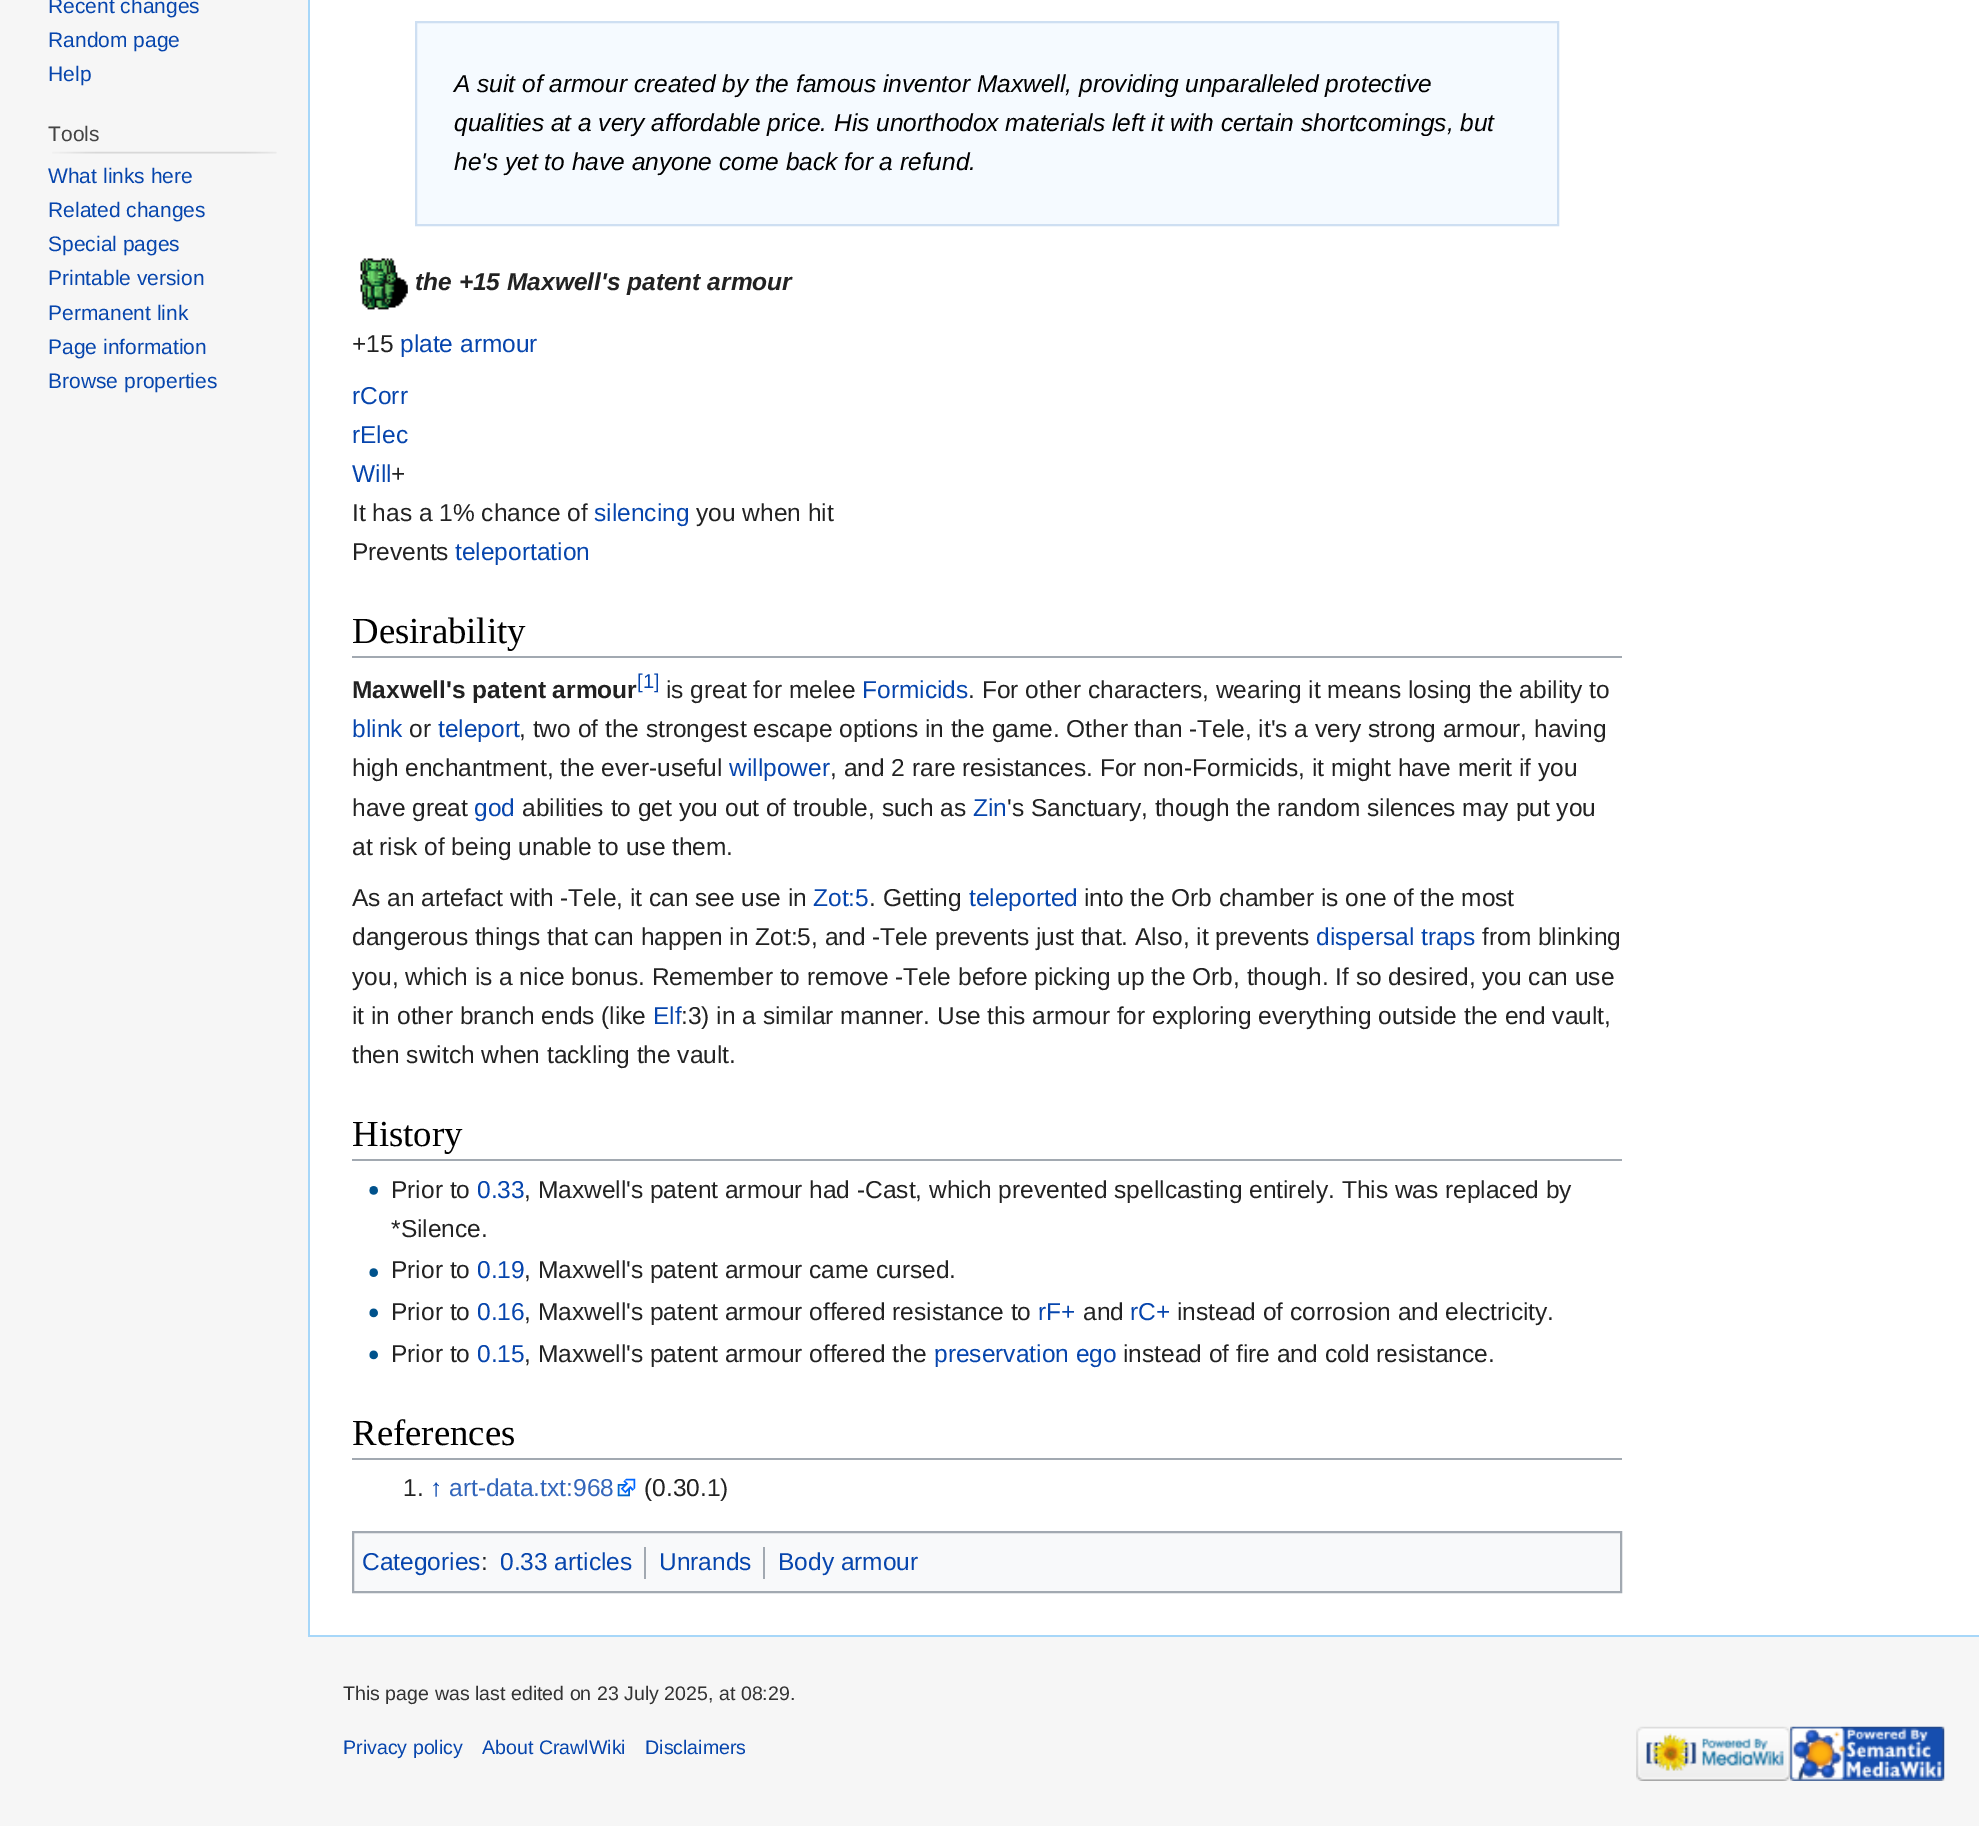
%!PS
<< /PageSize [1979 1826] >> setpagedevice
/m/moveto load def
/l/rlineto load def
/z/closepath load def
/f/fill load def
/s/stroke load def
/q/gsave load def
/Q_/grestore load def
/w/setlinewidth load def
/C { dup -16 bitshift 255 div exch dup -8 bitshift 255 and 255 div exch 255 and 255 div setrgbcolor } def
/F { [ exch dup neg 0 0 3 -1 roll 0 0 ] selectfont } def
/T { moveto show } def
/R { rectfill } def
/I { 5 dict begin { /h /w /y /x /name } { exch def } forall
  gsave x y translate w h scale
  w h 8 [w 0 0 h 0 0] name (r) file false 3 colorimage grestore end } def
0 1826 translate 1 -1 scale
4 setmiterlimit
16#F6F6F6 C
0 0 1979 1826 R
/LiberationSans-Regular 21 F
16#0645AD C
(Recent changes) 48 13 T
(Random page) 48 47 T
(Help) 48 81 T
16#444444 C
(Tools) 48 141 T
(1.rgb) 52 151 225 3 I
16#0645AD C
(What links here) 48 183 T
(Related changes) 48 217 T
(Special pages) 48 251 T
(Printable version) 48 285 T
(Permanent link) 48 320 T
(Page information) 48 354 T
(Browse properties) 48 388 T
16#FFFFFF C
310 0 1669 1635 R
16#A7D7F9 C
308 1635 1671 2 R
308 0 2 1636 R
16#F5FAFF C
416 22 m 1142 0 l 0 203 l -1142 0 l z q f Q_
16#CEDFF2 C
2 w
s
/LiberationSans-Italic 24.5 F
16#000000 C
(A suit of armour created by the famous inventor Maxwell, providing unparalleled protective) 454 92 T
(qualities at a very affordable price. His unorthodox materials left it with certain shortcomings, but) 454 131 T
(he's yet to have anyone come back for a refund.) 454 170 T
(2.rgb) 360 258 48 52 I
/LiberationSans-BoldItalic 24.5 F
16#222222 C
(the +15 Maxwell's patent armour) 415 290 T
/LiberationSans-Regular 24.5 F
(+15) 352 352 T
16#0645AD C
(plate armour) 400 352 T
(rCorr) 352 404 T
(rElec) 352 443 T
(Will) 352 482 T
16#222222 C
(+) 391 482 T
(It has a 1% chance of) 352 521 T
16#0645AD C
(silencing) 594 521 T
16#222222 C
(you when hit) 696 521 T
(Prevents) 352 560 T
16#0645AD C
(teleportation) 455 560 T
16#A2A9B1 C
352 656 1270 2 R
/LiberationSerif-Regular 36.75 F
16#000000 C
(Desirability) 352 643 T
/LiberationSans-Bold 24.5 F
16#222222 C
(Maxwell's patent armour) 352 698 T
/LiberationSans-Regular 20 F
16#0645AD C
([1]) 637 688 T
/LiberationSans-Regular 24.5 F
16#222222 C
(is great for melee) 666 698 T
16#0645AD C
(Formicids) 862 698 T
16#222222 C
(. For other characters, wearing it means losing the ability to) 968 698 T
16#0645AD C
(blink) 352 737 T
16#222222 C
(or) 409 737 T
16#0645AD C
(teleport) 438 737 T
16#222222 C
(, two of the strongest escape options in the game. Other than -Tele, it's a very strong armour, having) 519 737 T
(high enchantment, the ever-useful) 352 776 T
16#0645AD C
(willpower) 729 776 T
16#222222 C
(, and 2 rare resistances. For non-Formicids, it might have merit if you) 830 776 T
(have great) 352 816 T
16#0645AD C
(god) 474 816 T
16#222222 C
(abilities to get you out of trouble, such as) 522 816 T
16#0645AD C
(Zin) 973 816 T
16#222222 C
('s Sanctuary, though the random silences may put you) 1007 816 T
(at risk of being unable to use them.) 352 855 T
(As an artefact with -Tele, it can see use in) 352 906 T
16#0645AD C
(Zot:5) 813 906 T
16#222222 C
(. Getting) 869 906 T
16#0645AD C
(teleported) 969 906 T
16#222222 C
(into the Orb chamber is one of the most) 1084 906 T
(dangerous things that can happen in Zot:5, and -Tele prevents just that. Also, it prevents) 352 945 T
16#0645AD C
(dispersal traps) 1316 945 T
16#222222 C
(from blinking) 1482 945 T
(you, which is a nice bonus. Remember to remove -Tele before picking up the Orb, though. If so desired, you can use) 352 985 T
(it in other branch ends \(like) 352 1024 T
16#0645AD C
(Elf) 653 1024 T
16#222222 C
(:3\) in a similar manner. Use this armour for exploring everything outside the end vault,) 681 1024 T
(then switch when tackling the vault.) 352 1063 T
16#A2A9B1 C
352 1159 1270 2 R
/LiberationSerif-Regular 36.75 F
16#000000 C
(History) 352 1146 T
(3.rgb) 369 1186 9 9 I
/LiberationSans-Regular 24.5 F
16#222222 C
(Prior to) 391 1198 T
16#0645AD C
(0.33) 477 1198 T
16#222222 C
(, Maxwell's patent armour had -Cast, which prevented spellcasting entirely. This was replaced by) 524 1198 T
(*Silence.) 391 1237 T
(4.rgb) 369 1268 9 9 I
(Prior to) 391 1278 T
16#0645AD C
(0.19) 477 1278 T
16#222222 C
(, Maxwell's patent armour came cursed.) 524 1278 T
(5.rgb) 369 1308 9 10 I
(Prior to) 391 1320 T
16#0645AD C
(0.16) 477 1320 T
16#222222 C
(, Maxwell's patent armour offered resistance to) 524 1320 T
16#0645AD C
(rF+) 1038 1320 T
16#222222 C
(and) 1083 1320 T
16#0645AD C
(rC+) 1130 1320 T
16#222222 C
(instead of corrosion and electricity.) 1177 1320 T
(5.rgb) 369 1350 9 10 I
(Prior to) 391 1362 T
16#0645AD C
(0.15) 477 1362 T
16#222222 C
(, Maxwell's patent armour offered the) 524 1362 T
16#0645AD C
(preservation ego) 934 1362 T
16#222222 C
(instead of fire and cold resistance.) 1123 1362 T
16#A2A9B1 C
352 1458 1270 2 R
/LiberationSerif-Regular 36.75 F
16#000000 C
(References) 352 1445 T
/LiberationSans-Regular 24.5 F
16#222222 C
(1.) 403 1496 T
16#0645AD C
(↑) 430 1496 T
16#3366BB C
(art-data.txt:968) 449 1496 T
(6.rgb) 617 1478 19 19 I
16#222222 C
(\(0.30.1\)) 644 1496 T
16#F8F9FA C
353 1532 m 1268 0 l 0 60 l -1268 0 l z q f Q_
16#A2A9B1 C
s
16#0645AD C
(Categories) 362 1570 T
16#222222 C
(:) 481 1570 T
16#0645AD C
(0.33 articles) 500 1570 T
16#A2A9B1 C
644 1547 2 32 R
16#0645AD C
(Unrands) 659 1570 T
16#A2A9B1 C
763 1547 2 32 R
16#0645AD C
(Body armour) 778 1570 T
/LiberationSans-Regular 19.6 F
16#333333 C
(This page was last edited on 23 July 2025, at 08:29.) 343 1700 T
16#0645AD C
(Privacy policy) 343 1754 T
(About CrawlWiki) 482 1754 T
(Disclaimers) 645 1754 T
(7.rgb) 1636 1726 155 55 I
(8.rgb) 1790 1726 155 55 I
showpage
